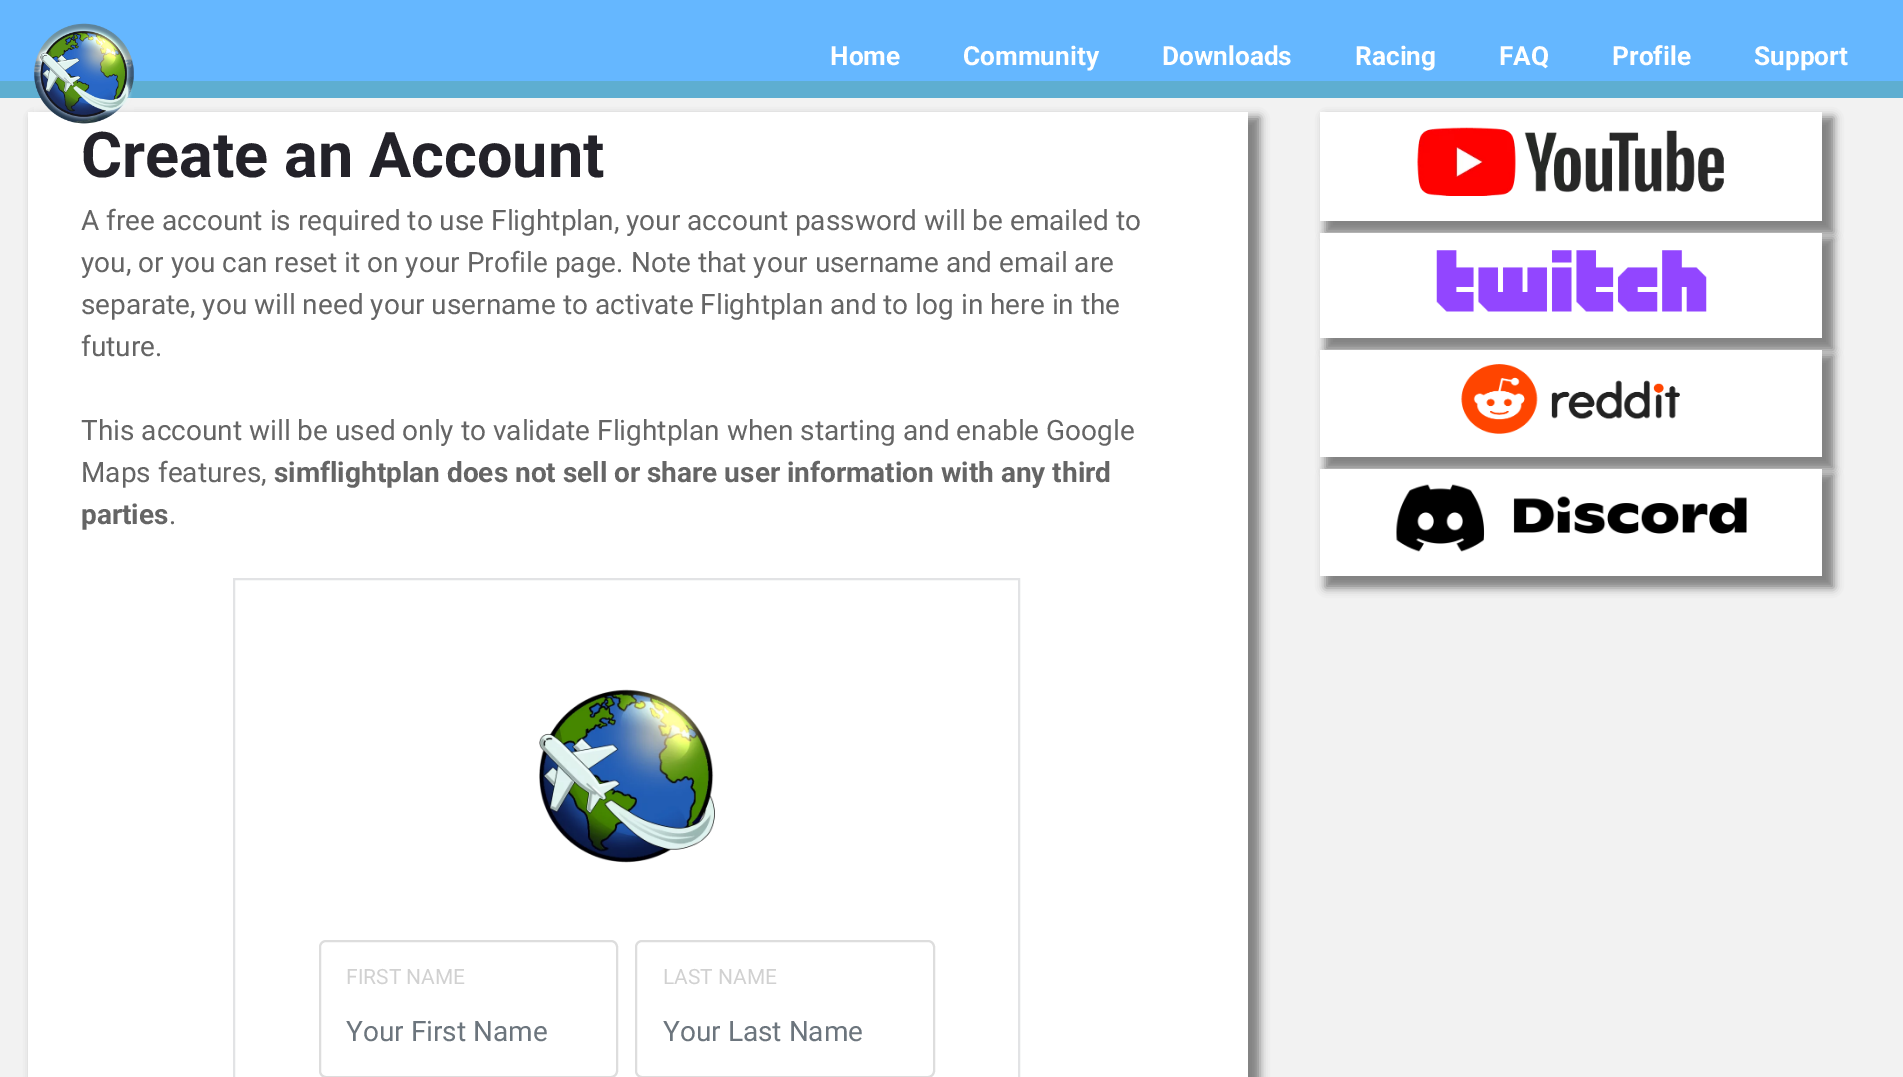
%!PS
<< /PageSize [1903 1077] /PageUsesTransparency true >> setpagedevice
/s/stroke load def
/w/setlinewidth load def
/C { dup -16 bitshift 255 div exch dup -8 bitshift 255 and 255 div exch 255 and 255 div setrgbcolor } def
/F { [ exch dup neg 0 0 3 -1 roll 0 0 ] selectfont } def
/T { moveto show } def
/R { rectfill } def
/A { dup .setfillconstantalpha .setstrokeconstantalpha } def
/Q { 5 dict begin { /r /h /w /y /x } { exch def } forall
  x r add y moveto x w add y 2 copy h add r arct x w add y h add x 1 index r arct
  x y h add x y r arct x y 2 copy exch w add exch r arct closepath end } def
/S { 12 dict begin { /a /b /q /h /w /y /x } { exch def } forall gsave /was 0 def
  9 -2 -9 { dup b mul 4 div /e exch def 1 sub .425 mul 2.718 exch exp 1 add a .99 .min exch div /now exch def
    1 1 now sub 1 was sub div sub A /was now def
    w h .min e 2 mul add 0 gt { x e sub y e sub w e 2 mul add h e 2 mul add
      q e add b .6 mul add w h .min 2 div e add .min 0 .max Q fill } if } for grestore end } def
/I { 5 dict begin { /h /w /y /x /name } { exch def } forall
  gsave x y translate w h scale
  w h 8 [w 0 0 h 0 0] name (r) file false 3 colorimage grestore end } def
0 .pushpdf14devicefilter
0 1077 translate 1 -1 scale
4 setmiterlimit
16#F2F2F2 C
0 0 1903 1077 R
16#5EAED1 C
0 81 1903 17 R
16#65B7FF C
0 0 1903 81 R
16#808080 C
33 117 1227 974 0 4.5 1 S
16#FFFFFF C
28 112 1220 965 R
(1.rgb) 34 23 100 101 I
/Roboto-Bold 26.25 F
(Home) 830 65 T
(Community) 963 65 T
(Downloads) 1162 65 T
(Racing) 1355 65 T
(FAQ) 1499 65 T
(Profile) 1612 65 T
(Support) 1754 65 T
/Roboto-Bold 63 F
16#232229 C
(Create an Account) 81 177 T
/Roboto-Regular 28 F
16#656565 C
(A free account is required to use Flightplan, your account password will be emailed to) 81 230 T
(you, or you can reset it on your Profile page. Note that your username and email are) 81 272 T
(separate, you will need your username to activate Flightplan and to log in here in the) 81 314 T
(future.) 81 356 T
(This account will be used only to validate Flightplan when starting and enable Google) 81 440 T
(Maps features,) 81 482 T
/Roboto-Bold 28 F
(simflightplan does not sell or share user information with any third) 274 482 T
(parties) 81 524 T
/Roboto-Regular 28 F
(.) 169 524 T
16#E2E3E5 C
2 w
234 579 785 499 rectstroke
(2.rgb) 539 689 176 174 I
16#DDDDDD C
320 941 297 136 6 Q s
/Roboto-Regular 21 F
16#D1D1D1 C
(FIRST NAME) 346 984 T
/Roboto-Regular 28 F
16#6C757D C
(Your First Name) 346 1041 T
16#DDDDDD C
636 941 298 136 6 Q s
/Roboto-Regular 21 F
16#D1D1D1 C
(LAST NAME) 663 984 T
/Roboto-Regular 28 F
16#6C757D C
(Your Last Name) 663 1041 T
16#808080 C
1325 117 509 116 0 4.5 1 S
16#FFFFFF C
1320 112 502 109 R
(3.rgb) 1417 127 307 69 I
16#808080 C
1325 238 509 112 0 4.5 1 S
16#FFFFFF C
1320 233 502 105 R
(4.rgb) 1436 250 271 62 I
16#808080 C
1325 355 509 114 0 4.5 1 S
16#FFFFFF C
1320 350 502 107 R
(5.rgb) 1461 364 219 70 I
16#808080 C
1325 474 509 114 0 4.5 1 S
16#FFFFFF C
1320 469 502 107 R
(6.rgb) 1396 484 351 68 I
.poppdf14devicefilter showpage
